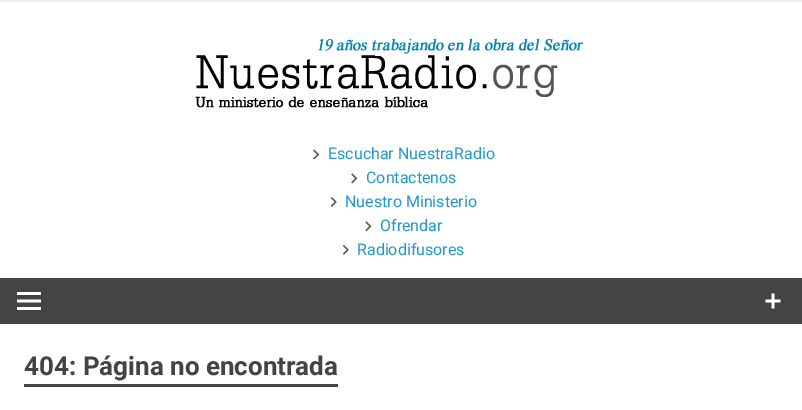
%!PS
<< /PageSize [802 410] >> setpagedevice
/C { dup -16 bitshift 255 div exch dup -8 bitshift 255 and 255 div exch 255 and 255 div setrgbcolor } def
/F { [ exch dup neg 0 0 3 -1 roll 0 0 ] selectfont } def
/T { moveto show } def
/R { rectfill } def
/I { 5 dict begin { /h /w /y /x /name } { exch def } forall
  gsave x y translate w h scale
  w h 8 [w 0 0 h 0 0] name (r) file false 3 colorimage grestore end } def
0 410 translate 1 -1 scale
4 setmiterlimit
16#FFFFFF C
0 0 802 410 R
16#EEEEEE C
0 0 802 2 R
(1.rgb) 195 38 388 70 I
(2.rgb) 313 149 7 11 I
/Roboto-Regular 16 F
16#2299CC C
(Escuchar NuestraRadio) 328 159 T
(3.rgb) 351 173 7 11 I
(Contactenos) 366 183 T
(4.rgb) 330 197 7 10 I
(Nuestro Ministerio) 345 207 T
(5.rgb) 365 221 7 11 I
(Ofrendar) 380 231 T
(6.rgb) 342 244 7 11 I
(Radiodifusores) 357 255 T
16#444444 C
0 278 802 46 R
(7.rgb) 765 293 16 16 I
(8.rgb) 17 292 24 18 I
/Roboto-Bold 26 F
(404: Página no encontrada) 24 375 T
24 384 314 3 R
showpage
